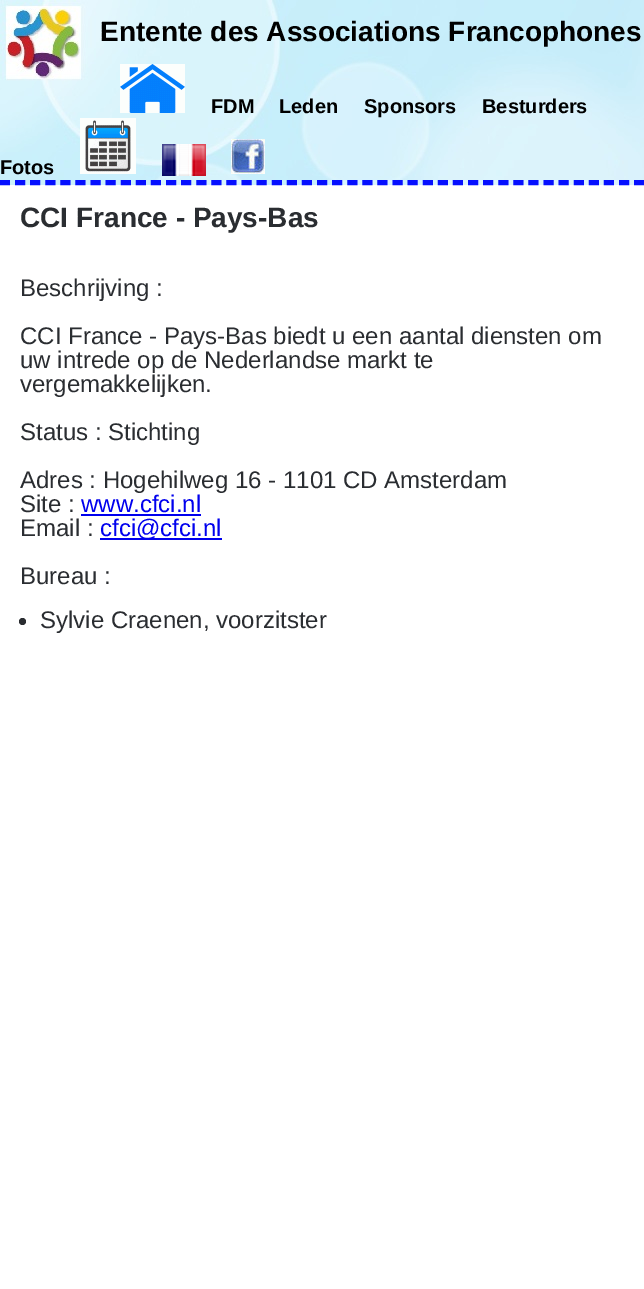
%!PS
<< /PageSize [644 1289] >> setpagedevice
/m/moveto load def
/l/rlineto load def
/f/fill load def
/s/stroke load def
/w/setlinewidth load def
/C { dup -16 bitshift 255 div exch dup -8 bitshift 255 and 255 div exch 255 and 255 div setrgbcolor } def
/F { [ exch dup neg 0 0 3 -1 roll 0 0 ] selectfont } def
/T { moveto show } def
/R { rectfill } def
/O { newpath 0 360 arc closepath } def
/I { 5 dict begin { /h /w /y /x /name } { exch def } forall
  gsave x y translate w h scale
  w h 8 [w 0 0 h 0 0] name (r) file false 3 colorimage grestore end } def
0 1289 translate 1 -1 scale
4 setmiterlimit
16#FFFFFF C
0 0 644 1289 R
(1.rgb) 0 0 644 185 I
16#050FFF C
5 w
[10 5.1] 0 setdash
0 182.5 m 644 0 l s
/LiberationSans-Bold 28 F
16#000000 C
(Entente des Associations Francophones) 100 41 T
(2.rgb) 120 64 65 49 I
/LiberationSans-Bold 20 F
(FDM) 211 113 T
(Leden) 279 113 T
(Sponsors) 364 113 T
(Besturders) 482 113 T
(Fotos) 0 174 T
(3.rgb) 80 118 56 56 I
(4.rgb) 162 144 44 32 I
(5.rgb) 231 139 34 35 I
/LiberationSans-Bold 28 F
16#2A2D31 C
(CCI France - Pays-Bas) 20 227 T
/LiberationSans-Regular 24 F
(Beschrijving :) 20 296 T
(CCI France - Pays-Bas biedt u een aantal diensten om) 20 344 T
(uw intrede op de Nederlandse markt te) 20 368 T
(vergemakkelijken.) 20 392 T
(Status : Stichting) 20 440 T
(Adres : Hogehilweg 16 - 1101 CD Amsterdam) 20 488 T
(Site :) 20 512 T
16#0000EE C
(www.cfci.nl) 81 512 T
81 514 120 2 R
16#2A2D31 C
(Email :) 20 536 T
16#0000EE C
100 538 122 2 R
(cfci@cfci.nl) 100 536 T
16#2A2D31 C
(Bureau :) 20 584 T
22.5 621.5 3.5 O f
(Sylvie Craenen, voorzitster) 40 628 T
showpage
